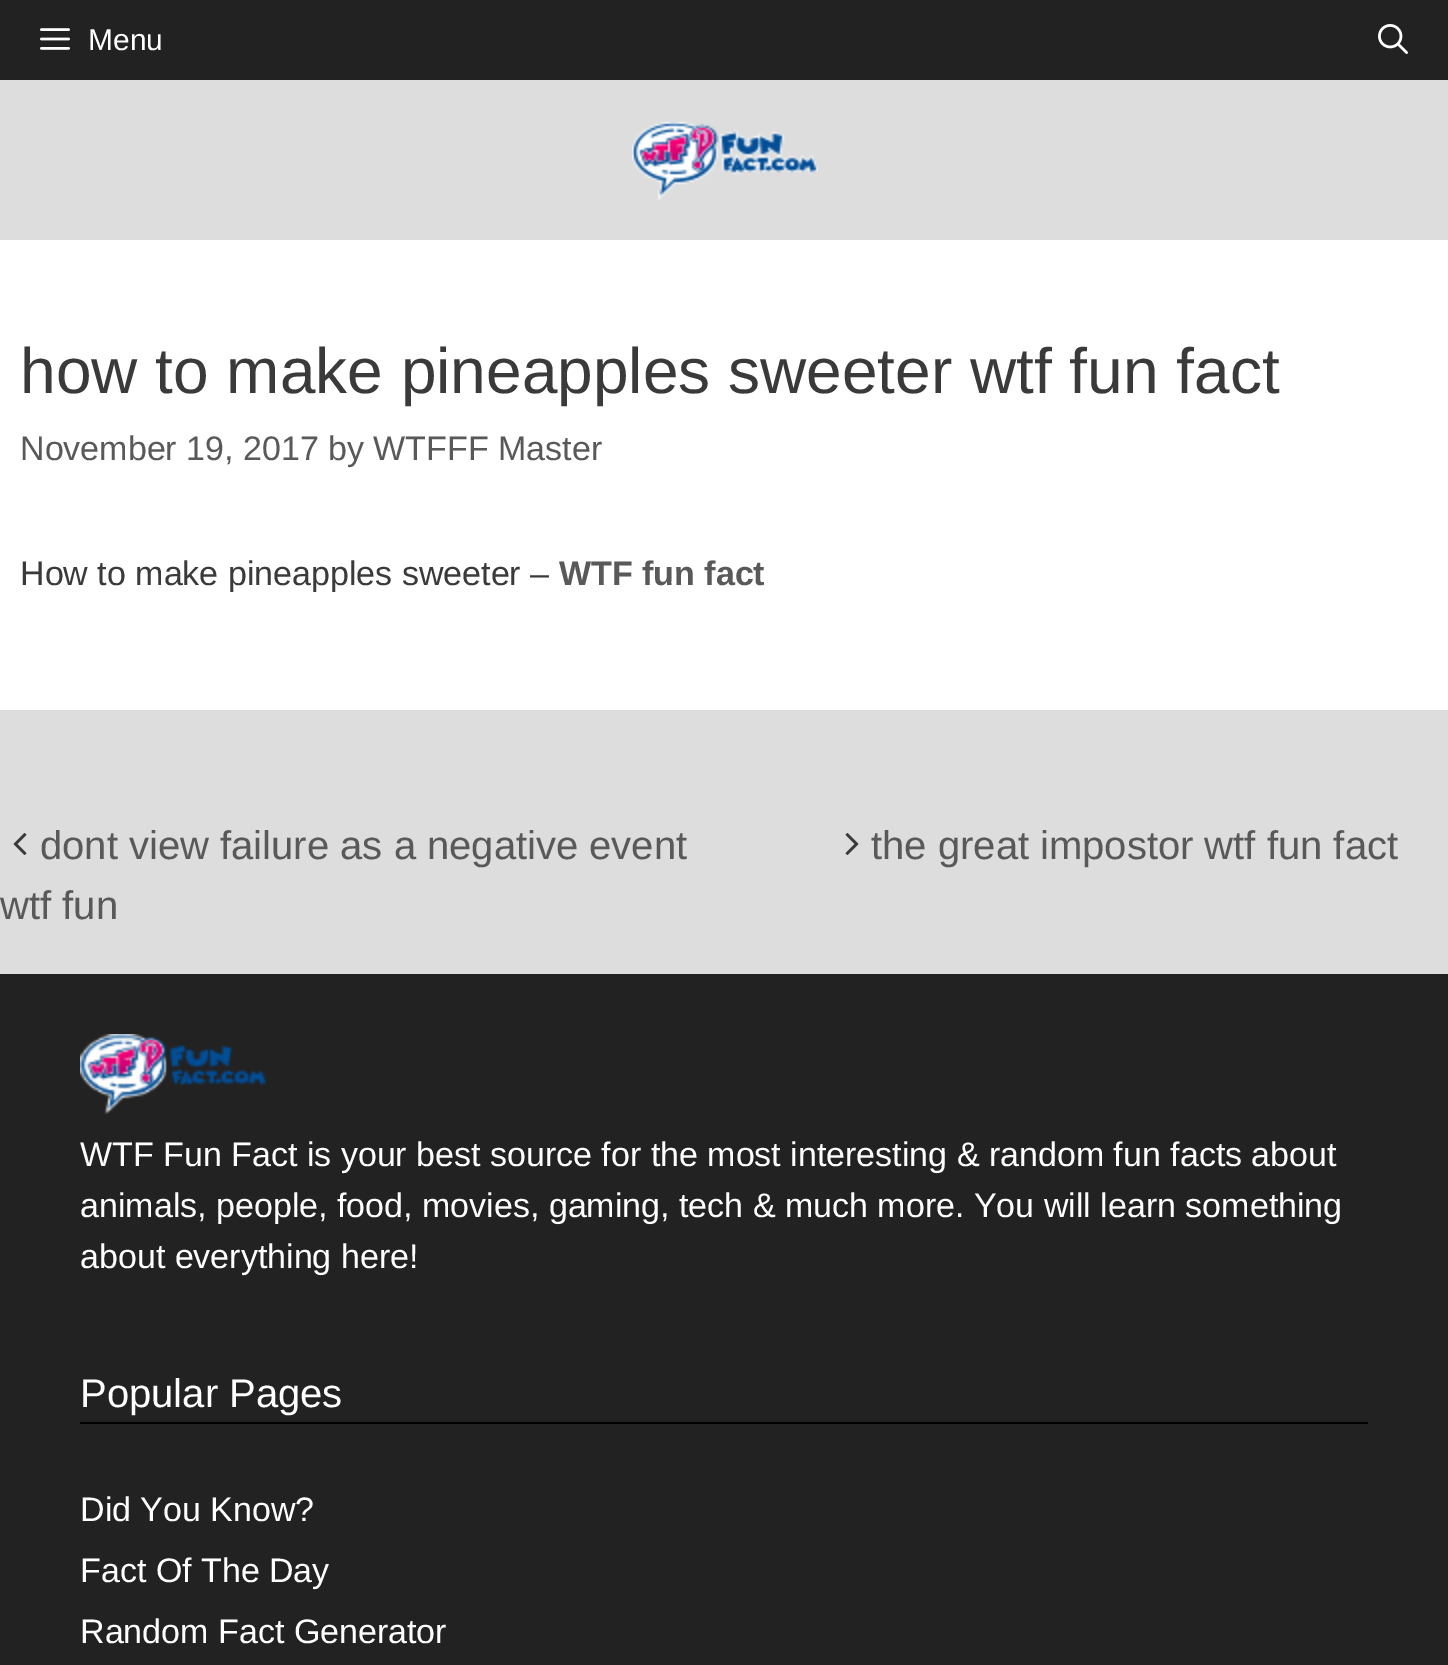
%!PS
<< /PageSize [1448 1665] >> setpagedevice
/C { dup -16 bitshift 255 div exch dup -8 bitshift 255 and 255 div exch 255 and 255 div setrgbcolor } def
/F { [ exch dup neg 0 0 3 -1 roll 0 0 ] selectfont } def
/T { moveto show } def
/R { rectfill } def
/I { 5 dict begin { /h /w /y /x /name } { exch def } forall
  gsave x y translate w h scale
  w h 8 [w 0 0 h 0 0] name (r) file false 3 colorimage grestore end } def
0 1665 translate 1 -1 scale
4 setmiterlimit
16#DDDDDD C
0 0 1448 1665 R
16#222222 C
0 0 1448 80 R
(1.rgb) 40 28 30 22 I
/LiberationSans-Regular 30 F
16#FFFFFF C
(Menu) 88 50 T
(2.rgb) 1378 24 30 30 I
(3.rgb) 632 121 186 79 I
0 240 1448 470 R
/LiberationSans-Regular 64 F
16#3A3A3A C
(how to make pineapples sweeter wtf fun fact) 20 393 T
/LiberationSans-Regular 34 F
16#595959 C
(November 19, 2017 by WTFFF Master) 20 460 T
16#3A3A3A C
(How to make pineapples sweeter –) 20 585 T
/LiberationSans-Bold 34 F
16#595959 C
(WTF fun fact) 559 585 T
(4.rgb) 13 833 14 22 I
/LiberationSans-Regular 40 F
(dont view failure as a negative event) 40 859 T
(wtf fun) 0 919 T
(5.rgb) 845 833 14 22 I
(the great impostor wtf fun fact) 871 859 T
16#222222 C
0 974 1448 691 R
(6.rgb) 80 1034 186 80 I
/LiberationSans-Regular 34 F
16#FFFFFF C
(WTF Fun Fact is your best source for the most interesting & random fun facts about) 80 1166 T
(animals, people, food, movies, gaming, tech & much more. You will learn something) 80 1217 T
(about everything here!) 80 1268 T
16#000000 C
80 1422 1288 2 R
/LiberationSans-Regular 40 F
16#FFFFFF C
(Popular Pages) 80 1407 T
/LiberationSans-Regular 34 F
(Did You Know?) 80 1521 T
(Fact Of The Day) 80 1582 T
(Random Fact Generator) 80 1643 T
showpage
